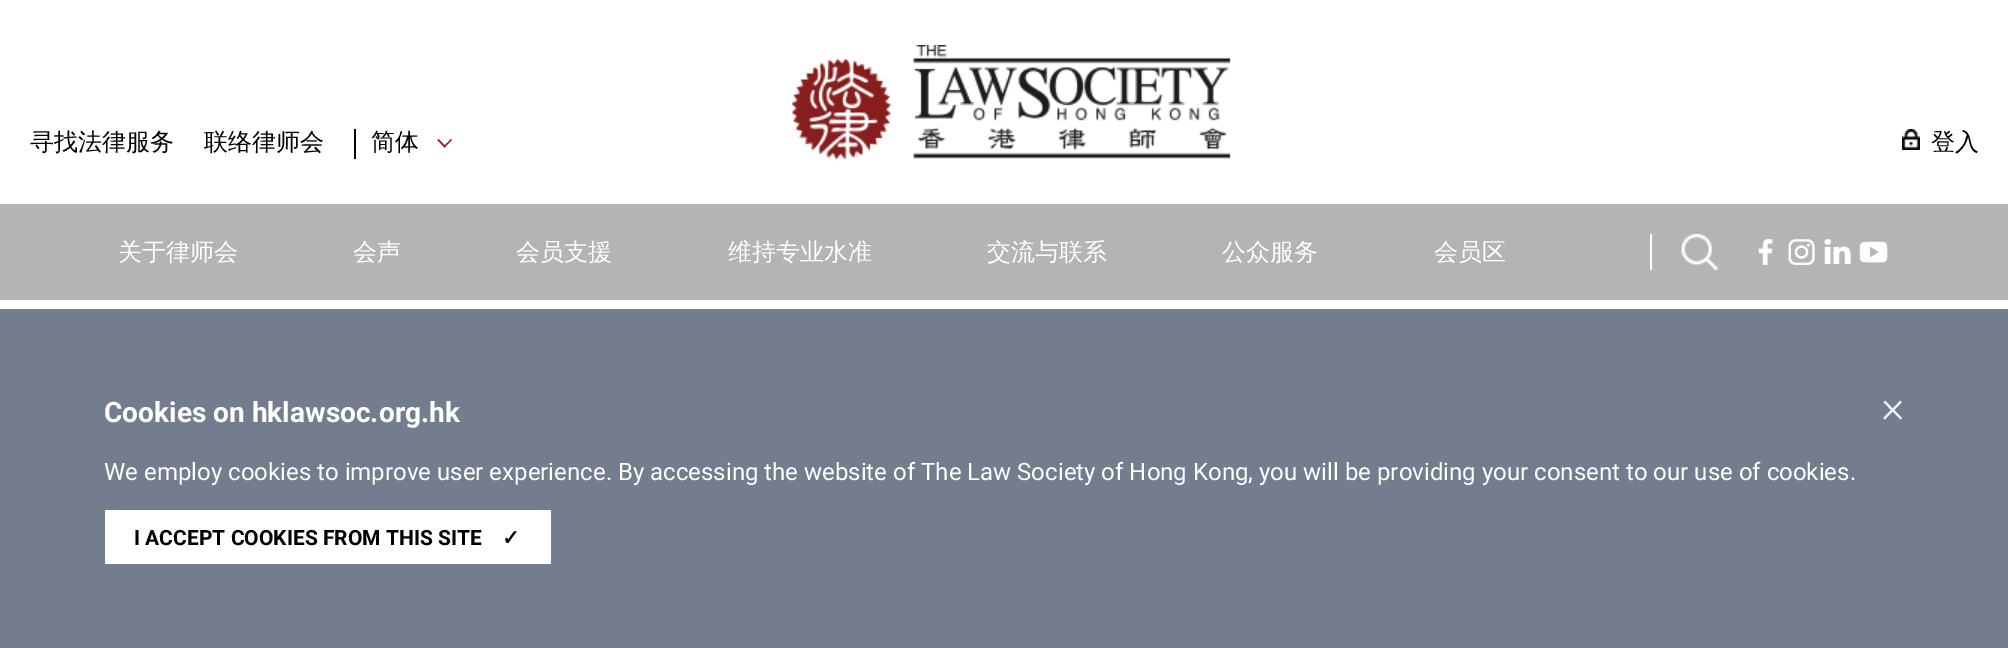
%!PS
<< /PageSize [2008 648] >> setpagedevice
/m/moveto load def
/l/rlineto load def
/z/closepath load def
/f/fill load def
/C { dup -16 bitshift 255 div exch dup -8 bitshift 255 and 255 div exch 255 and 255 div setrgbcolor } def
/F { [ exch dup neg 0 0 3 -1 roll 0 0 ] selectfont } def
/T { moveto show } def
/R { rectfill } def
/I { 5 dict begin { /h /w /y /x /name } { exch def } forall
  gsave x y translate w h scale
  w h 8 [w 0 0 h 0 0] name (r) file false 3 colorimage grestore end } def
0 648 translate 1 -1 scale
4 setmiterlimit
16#FFFFFF C
0 0 2008 648 R
/WenQuanYiZenHei-Medium 24 F
16#000000 C
(寻找法律服务) 30 150 T
(联络律师会) 204 150 T
354 129 2 30 R
(简体) 371 150 T
16#871D1D C
451 139 m 1 1 l -7.5 7.5 l -1 -1 l z f
438.5 139 m 7.5 7.5 l -1.5 1 l -7 -7.5 l z f
(1.rgb) 792 45 439 114 I
(2.rgb) 1902 129 18 21 I
16#000000 C
(登入) 1931 150 T
16#B4B4B4 C
0 204 2008 96 R
16#FFFFFF C
(关于律师会) 118 260 T
(会声) 353 260 T
(会员支援) 516 260 T
(维持专业水准) 728 260 T
(交流与联系) 987 260 T
(公众服务) 1222 260 T
(会员区) 1434 260 T
1650 234 2 36 R
(3.rgb) 1681 234 37 36 I
(4.rgb) 1758 239 15 26 I
(5.rgb) 1788 239 27 26 I
(6.rgb) 1824 239 27 26 I
(7.rgb) 1859 241 29 22 I
16#747D8D C
0 309 2008 339 R
/Roboto-Bold 28.1 F
16#FFFFFF C
(Cookies on hklawsoc.org.hk) 104 422 T
/Roboto-Light 45 F
16#F1F2F4 C
(×) 1881 422 T
/Roboto-Regular 24 F
16#FFFFFF C
(We employ cookies to improve user experience. By accessing the website of The Law Society of Hong Kong, you will be providing your consent to our use of cookies.) 104 480 T
105 510 446 54 R
/Roboto-Bold 21 F
16#000000 C
(I ACCEPT COOKIES FROM THIS SITE) 134 545 T
/DejaVuSans-Bold 21 F
(✓) 502 545 T
showpage
